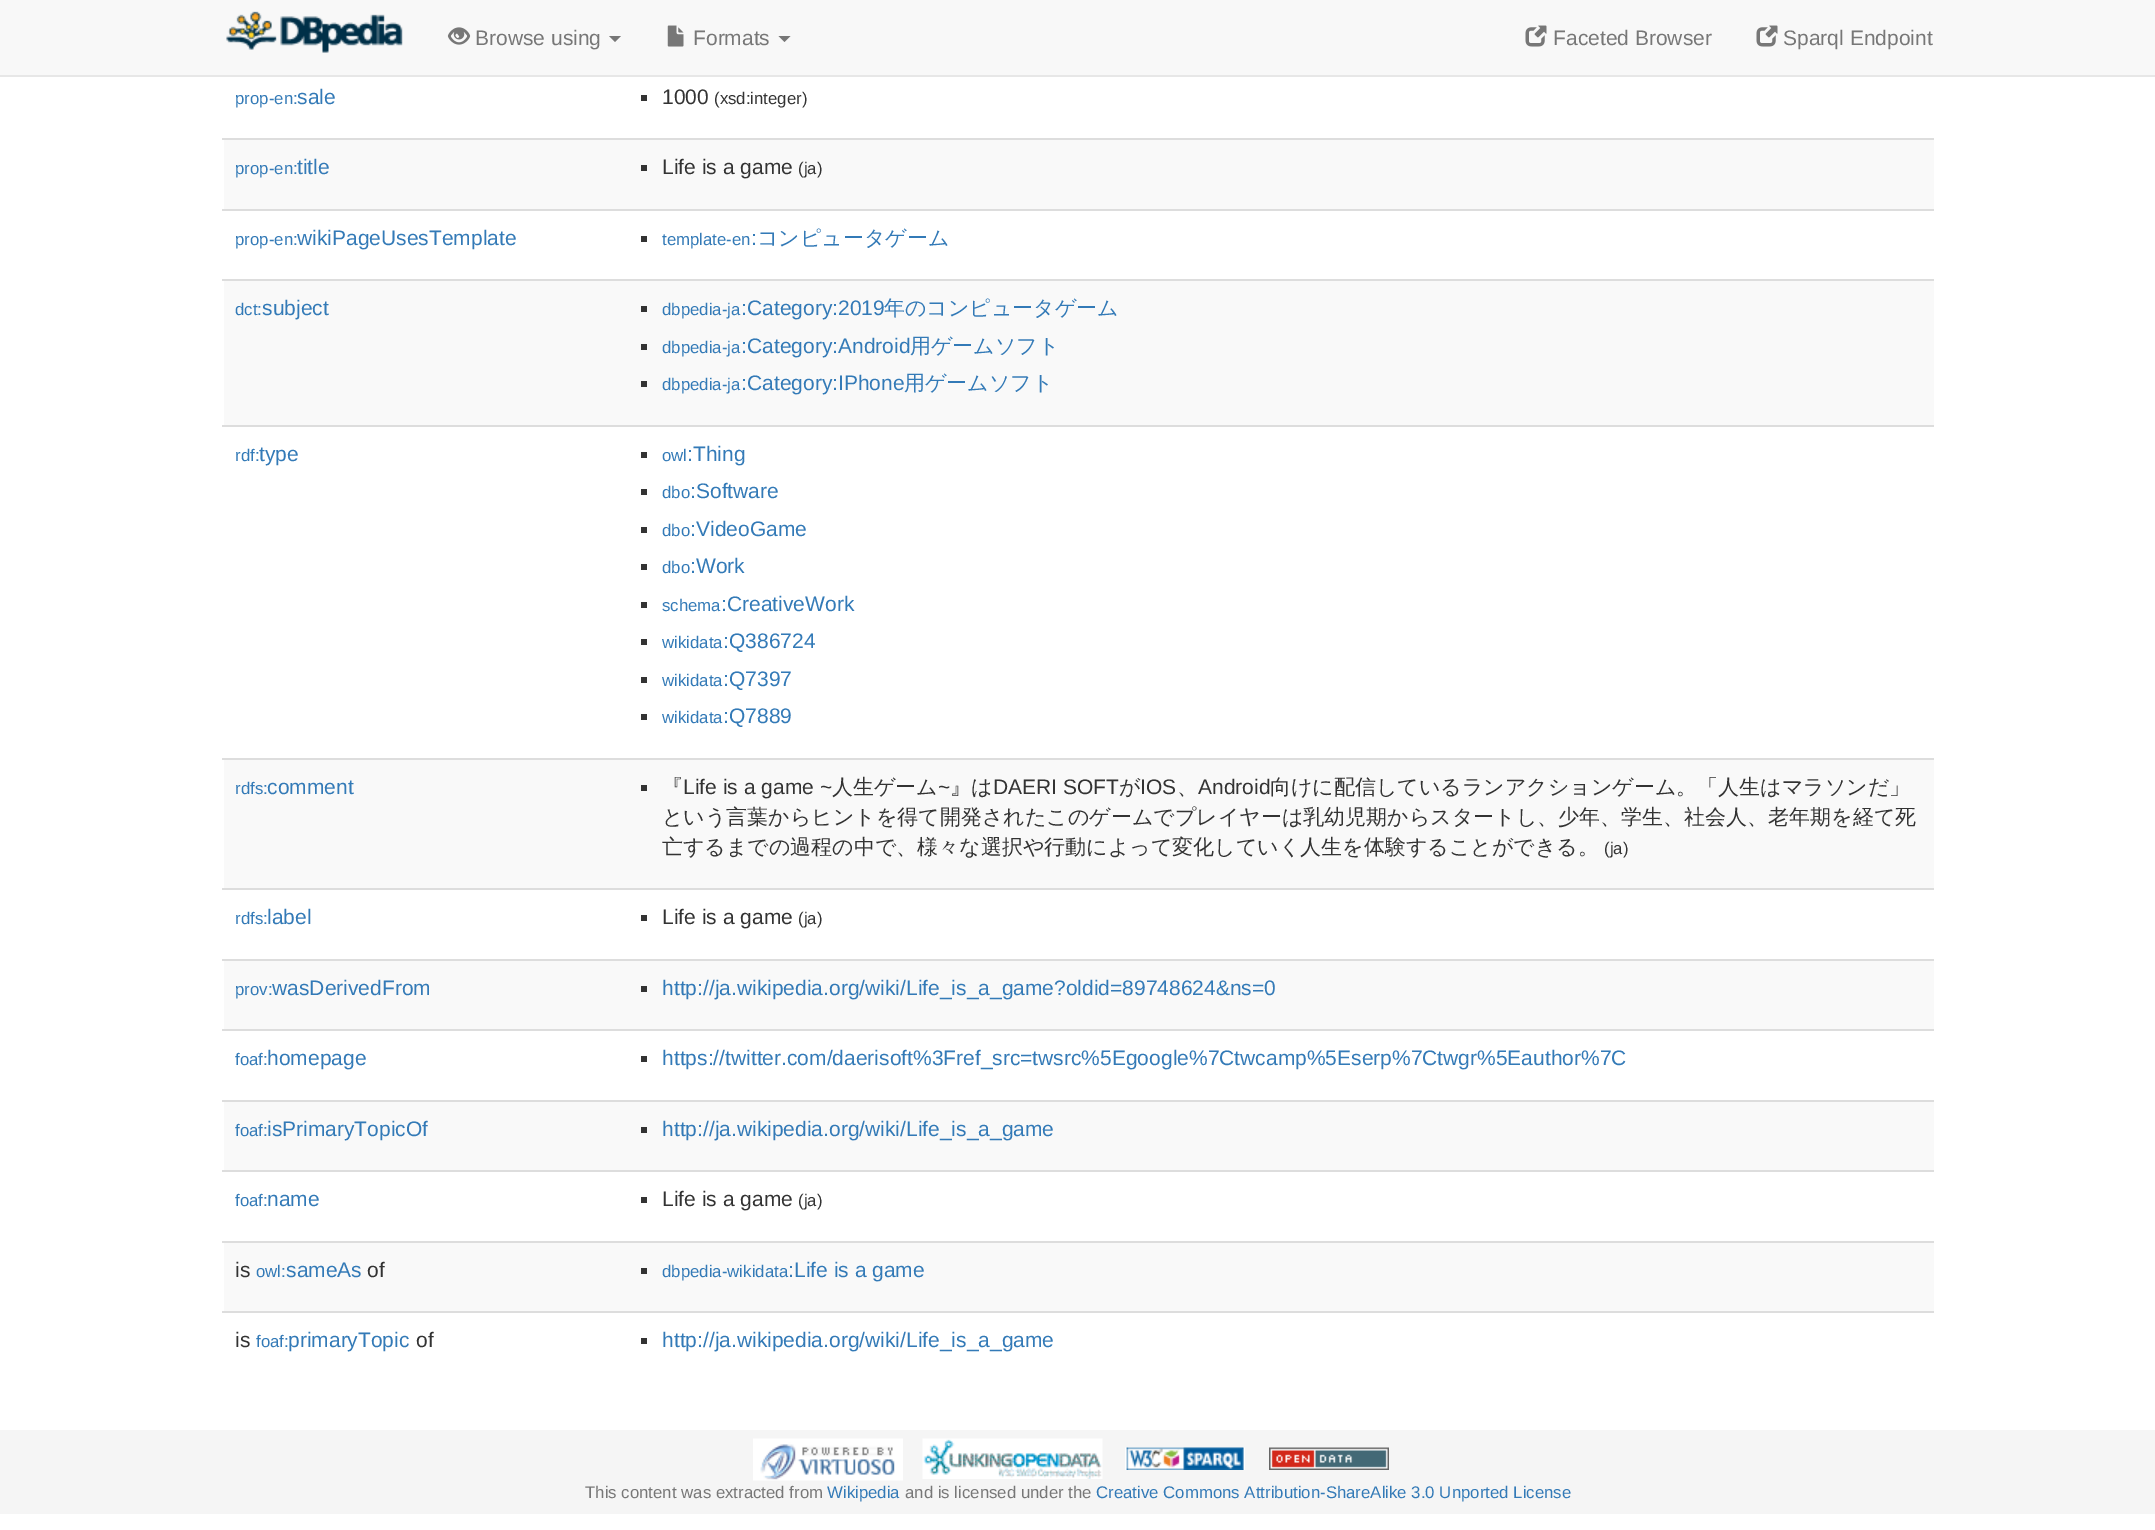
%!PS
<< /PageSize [2155 1530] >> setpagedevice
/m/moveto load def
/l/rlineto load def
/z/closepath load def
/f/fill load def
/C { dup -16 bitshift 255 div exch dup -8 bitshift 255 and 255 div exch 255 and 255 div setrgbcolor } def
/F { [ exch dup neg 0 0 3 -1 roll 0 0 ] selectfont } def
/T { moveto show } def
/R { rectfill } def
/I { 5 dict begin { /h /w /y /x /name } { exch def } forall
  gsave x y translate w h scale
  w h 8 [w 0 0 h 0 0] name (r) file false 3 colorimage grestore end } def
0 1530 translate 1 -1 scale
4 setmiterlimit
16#FFFFFF C
0 0 2155 1530 R
16#F8F8F8 C
0 0 2155 75 R
16#E7E7E7 C
0 75 2155 2 R
(1.rgb) 226 11 177 42 I
(2.rgb) 447 27 24 18 I
/LiberationSans-Regular 21 F
16#777777 C
(Browse using) 475 45 T
609 36 m 12 0 l -6 6 l z f
(3.rgb) 667 25 17 22 I
(Formats) 693 45 T
778.5 36 m 12 0 l -6 6 l z f
(4.rgb) 1525 25 22 22 I
(Faceted Browser) 1553 45 T
(4.rgb) 1756 25 22 22 I
(Sparql Endpoint) 1783 45 T
/LiberationSans-Regular 16.8 F
16#337AB7 C
(prop-en:) 235 104 T
/LiberationSans-Regular 21 F
(sale) 297 104 T
16#333333 C
641 95 6 6 R
(1000) 662 104 T
/LiberationSans-Regular 16.8 F
(\(xsd:integer\)) 714 104 T
16#F9F9F9 C
224 140 1710 69 R
16#337AB7 C
(prop-en:) 235 174 T
/LiberationSans-Regular 21 F
(title) 297 174 T
16#DDDDDD C
222 138 1712 2 R
16#333333 C
641 165 6 6 R
(Life is a game) 662 174 T
/LiberationSans-Regular 16.8 F
(\(ja\)) 798 174 T
16#337AB7 C
(prop-en:) 235 245 T
/LiberationSans-Regular 21 F
(wikiPageUsesTemplate) 297 245 T
16#DDDDDD C
222 209 1712 2 R
16#333333 C
641 236 6 6 R
/LiberationSans-Regular 16.8 F
16#337AB7 C
(template-en) 662 245 T
/LiberationSans-Regular 21 F
(:) 751 245 T
/WenQuanYiZenHei-Medium 21 F
(コンピュータゲーム) 757 245 T
16#F9F9F9 C
224 281 1710 144 R
/LiberationSans-Regular 16.8 F
16#337AB7 C
(dct:) 235 315 T
/LiberationSans-Regular 21 F
(subject) 262 315 T
16#DDDDDD C
222 279 1712 2 R
16#333333 C
641 306 6 6 R
/LiberationSans-Regular 16.8 F
16#337AB7 C
(dbpedia-ja) 662 315 T
/LiberationSans-Regular 21 F
(:Category:2019) 741 315 T
/WenQuanYiZenHei-Medium 21 F
(年のコンピュータゲーム) 884 315 T
16#333333 C
641 344 6 6 R
/LiberationSans-Regular 16.8 F
16#337AB7 C
(dbpedia-ja) 662 353 T
/LiberationSans-Regular 21 F
(:Category:Android) 741 353 T
/WenQuanYiZenHei-Medium 21 F
(用ゲームソフト) 910 353 T
16#333333 C
641 381 6 6 R
/LiberationSans-Regular 16.8 F
16#337AB7 C
(dbpedia-ja) 662 390 T
/LiberationSans-Regular 21 F
(:Category:IPhone) 741 390 T
/WenQuanYiZenHei-Medium 21 F
(用ゲームソフト) 904 390 T
/LiberationSans-Regular 16.8 F
(rdf:) 235 461 T
/LiberationSans-Regular 21 F
(type) 259 461 T
16#DDDDDD C
222 425 1712 2 R
16#333333 C
641 452 6 6 R
/LiberationSans-Regular 16.8 F
16#337AB7 C
(owl) 662 461 T
/LiberationSans-Regular 21 F
(:Thing) 687 461 T
16#333333 C
641 489 6 6 R
/LiberationSans-Regular 16.8 F
16#337AB7 C
(dbo) 662 498 T
/LiberationSans-Regular 21 F
(:Software) 690 498 T
16#333333 C
641 527 6 6 R
/LiberationSans-Regular 16.8 F
16#337AB7 C
(dbo) 662 536 T
/LiberationSans-Regular 21 F
(:VideoGame) 690 536 T
16#333333 C
641 564 6 6 R
/LiberationSans-Regular 16.8 F
16#337AB7 C
(dbo) 662 573 T
/LiberationSans-Regular 21 F
(:Work) 690 573 T
16#333333 C
641 602 6 6 R
/LiberationSans-Regular 16.8 F
16#337AB7 C
(schema) 662 611 T
/LiberationSans-Regular 21 F
(:CreativeWork) 721 611 T
16#333333 C
641 639 6 6 R
/LiberationSans-Regular 16.8 F
16#337AB7 C
(wikidata) 662 648 T
/LiberationSans-Regular 21 F
(:Q386724) 723 648 T
16#333333 C
641 677 6 6 R
/LiberationSans-Regular 16.8 F
16#337AB7 C
(wikidata) 662 686 T
/LiberationSans-Regular 21 F
(:Q7397) 723 686 T
16#333333 C
641 714 6 6 R
/LiberationSans-Regular 16.8 F
16#337AB7 C
(wikidata) 662 723 T
/LiberationSans-Regular 21 F
(:Q7889) 723 723 T
16#F9F9F9 C
224 760 1710 128 R
/LiberationSans-Regular 16.8 F
16#337AB7 C
(rdfs:) 235 794 T
/LiberationSans-Regular 21 F
(comment) 267 794 T
16#DDDDDD C
222 758 1712 2 R
16#333333 C
641 785 6 6 R
/WenQuanYiZenHei-Medium 21 F
(『) 662 794 T
/LiberationSans-Regular 21 F
(Life is a game ~) 683 794 T
/WenQuanYiZenHei-Medium 21 F
(人生ゲーム) 832 794 T
/LiberationSans-Regular 21 F
(~) 938 794 T
/WenQuanYiZenHei-Medium 21 F
(』は) 950 794 T
/LiberationSans-Regular 21 F
(DAERI SOFT) 993 794 T
/WenQuanYiZenHei-Medium 21 F
(が) 1119 794 T
/LiberationSans-Regular 21 F
(IOS) 1140 794 T
(Android) 1198 794 T
/WenQuanYiZenHei-Medium 21 F
(向けに配信しているランアクションゲーム。「人生はマラソンだ」) 1270 794 T
(、) 1177 794 T
(という言葉からヒントを得て開発されたこのゲームでプレイヤーは乳幼児期からスタートし、少年、学生、社会人、老年期を経て死) 662 824 T
(亡するまでの過程の中で、様々な選択や行動によって変化していく人生を体験することができる。) 662 854 T
/LiberationSans-Regular 16.8 F
(\(ja\)) 1604 854 T
16#337AB7 C
(rdfs:) 235 924 T
/LiberationSans-Regular 21 F
(label) 267 924 T
16#DDDDDD C
222 888 1712 2 R
16#333333 C
641 915 6 6 R
(Life is a game) 662 924 T
/LiberationSans-Regular 16.8 F
(\(ja\)) 798 924 T
16#F9F9F9 C
224 961 1710 68 R
16#337AB7 C
(prov:) 235 995 T
/LiberationSans-Regular 21 F
(wasDerivedFrom) 272 995 T
16#DDDDDD C
222 959 1712 2 R
16#333333 C
641 986 6 6 R
16#337AB7 C
(http://ja.wikipedia.org/wiki/Life_is_a_game?oldid=89748624&ns=0) 662 995 T
/LiberationSans-Regular 16.8 F
(foaf:) 235 1065 T
/LiberationSans-Regular 21 F
(homepage) 267 1065 T
16#DDDDDD C
222 1029 1712 2 R
16#333333 C
641 1056 6 6 R
16#337AB7 C
(https://twitter.com/daerisoft%3Fref_src=twsrc%5Egoogle%7Ctwcamp%5Eserp%7Ctwgr%5Eauthor%7C) 662 1065 T
16#F9F9F9 C
224 1102 1710 68 R
/LiberationSans-Regular 16.8 F
16#337AB7 C
(foaf:) 235 1136 T
/LiberationSans-Regular 21 F
(isPrimaryTopicOf) 267 1136 T
16#DDDDDD C
222 1100 1712 2 R
16#333333 C
641 1127 6 6 R
16#337AB7 C
(http://ja.wikipedia.org/wiki/Life_is_a_game) 662 1136 T
/LiberationSans-Regular 16.8 F
(foaf:) 235 1206 T
/LiberationSans-Regular 21 F
(name) 267 1206 T
16#DDDDDD C
222 1170 1712 2 R
16#333333 C
641 1197 6 6 R
(Life is a game) 662 1206 T
/LiberationSans-Regular 16.8 F
(\(ja\)) 798 1206 T
16#F9F9F9 C
224 1243 1710 68 R
/LiberationSans-Regular 21 F
16#333333 C
(is) 235 1277 T
/LiberationSans-Regular 16.8 F
16#337AB7 C
(owl:) 256 1277 T
/LiberationSans-Regular 21 F
(sameAs) 286 1277 T
16#333333 C
(of) 367 1277 T
16#DDDDDD C
222 1241 1712 2 R
16#333333 C
641 1268 6 6 R
/LiberationSans-Regular 16.8 F
16#337AB7 C
(dbpedia-wikidata) 662 1277 T
/LiberationSans-Regular 21 F
(:Life is a game) 788 1277 T
16#333333 C
(is) 235 1347 T
/LiberationSans-Regular 16.8 F
16#337AB7 C
(foaf:) 256 1347 T
/LiberationSans-Regular 21 F
(primaryTopic) 288 1347 T
16#333333 C
(of) 416 1347 T
16#DDDDDD C
222 1311 1712 2 R
16#333333 C
641 1338 6 6 R
16#337AB7 C
(http://ja.wikipedia.org/wiki/Life_is_a_game) 662 1347 T
16#F5F5F5 C
0 1430 2155 84 R
(5.rgb) 753 1438 150 43 I
(6.rgb) 922 1438 181 41 I
(7.rgb) 1125 1447 120 23 I
(8.rgb) 1269 1447 120 23 I
/LiberationSans-Regular 16.8 F
16#777777 C
(This content was extracted from) 585 1498 T
16#337AB7 C
(Wikipedia) 827 1498 T
16#777777 C
(and is licensed under the) 905 1498 T
16#337AB7 C
(Creative Commons Attribution-ShareAlike 3.0 Unported License) 1096 1498 T
showpage
